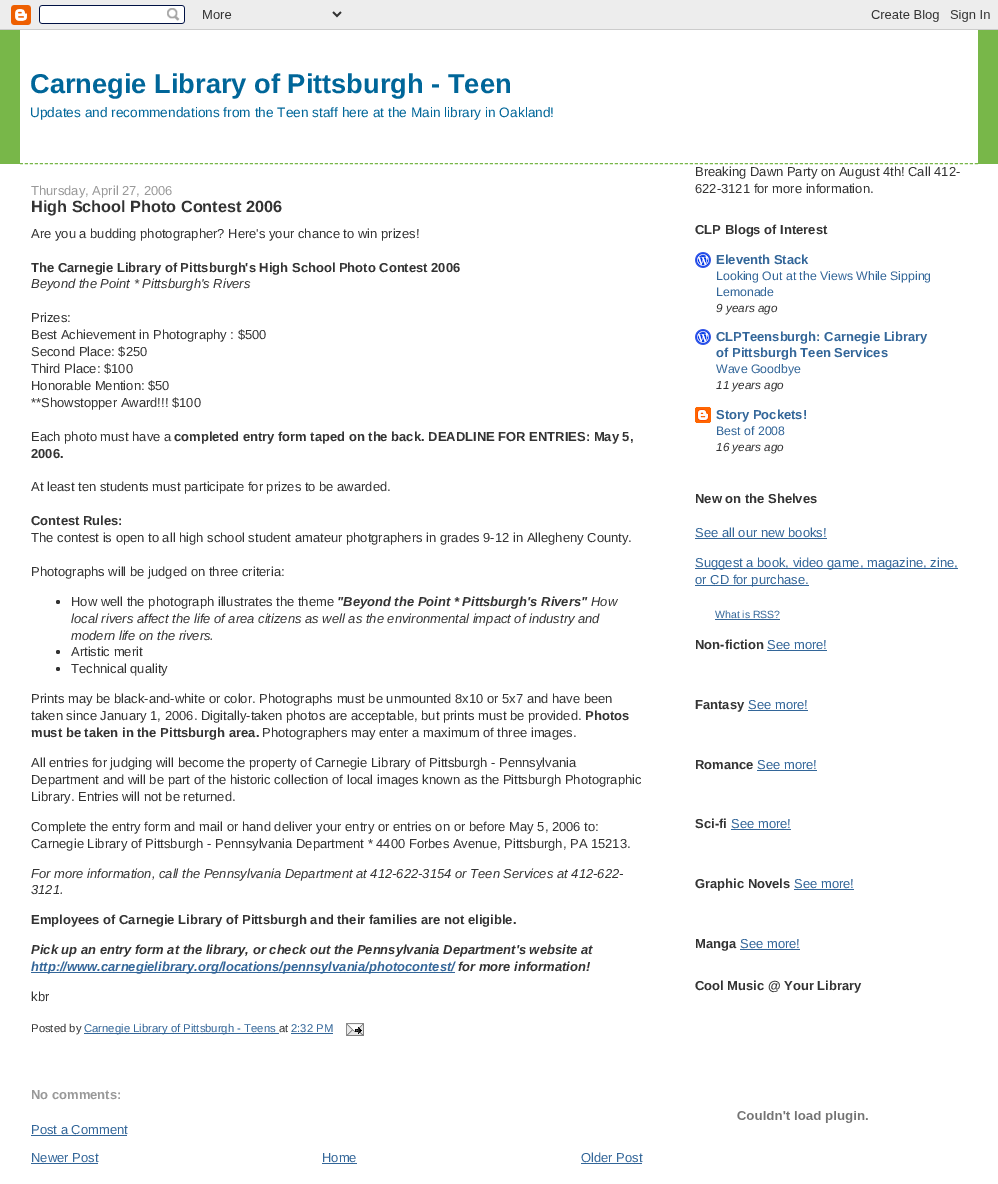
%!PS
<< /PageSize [998 1184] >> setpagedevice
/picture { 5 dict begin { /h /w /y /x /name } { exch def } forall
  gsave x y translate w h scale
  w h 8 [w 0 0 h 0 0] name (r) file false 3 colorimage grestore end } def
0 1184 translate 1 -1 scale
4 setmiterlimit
1 setgray
0 0 998 1184 rectfill
(img1.rgb) 0 0 998 30 picture
0.471 0.718 0.286 setrgbcolor
0 30 998 134 rectfill
1 setgray
20 30 958 134 rectfill
0.471 0.718 0.286 setrgbcolor
[3 2] 0 setdash
newpath 20 163.5 moveto 978 163.5 lineto stroke
/LiberationSans-Bold [27.25 0 0 -27.25 0 0] selectfont
0 0.4 0.6 setrgbcolor
30 93 moveto (Carnegie Library of Pittsburgh - Teen) show
/LiberationSans-Regular [13.65 0 0 -13.65 0 0] selectfont
30 117 moveto (Updates and recommendations from the Teen staff here at the Main library in Oakland!) show
/LiberationSans-Regular [13 0 0 -13 0 0] selectfont
0.6 setgray
31 195 moveto (Thursday, April 27, 2006) show
/LiberationSans-Bold [16.25 0 0 -16.25 0 0] selectfont
0.2 setgray
31 212 moveto (High School Photo Contest 2006) show
/LiberationSans-Regular [13 0 0 -13 0 0] selectfont
31 238 moveto (Are you a budding photographer? Here's your chance to win prizes!) show
/LiberationSans-Bold [13 0 0 -13 0 0] selectfont
31 272 moveto (The Carnegie Library of Pittsburgh's High School Photo Contest 2006) show
/LiberationSans-Italic [13 0 0 -13 0 0] selectfont
31 288 moveto (Beyond the Point * Pittsburgh's Rivers) show
/LiberationSans-Regular [13 0 0 -13 0 0] selectfont
31 322 moveto (Prizes:) show
31 339 moveto (Best Achievement in Photography : $500) show
31 356 moveto (Second Place: $250) show
31 373 moveto (Third Place: $100) show
31 390 moveto (Honorable Mention: $50) show
31 407 moveto (**Showstopper Award!!! $100) show
31 441 moveto (Each photo must have a) show
/LiberationSans-Bold [13 0 0 -13 0 0] selectfont
174 441 moveto (completed entry form taped on the back. DEADLINE FOR ENTRIES: May 5,) show
31 458 moveto (2006.) show
/LiberationSans-Regular [13 0 0 -13 0 0] selectfont
31 491 moveto (At least ten students must participate for prizes to be awarded.) show
/LiberationSans-Bold [13 0 0 -13 0 0] selectfont
31 525 moveto (Contest Rules:) show
/LiberationSans-Regular [13 0 0 -13 0 0] selectfont
31 542 moveto (The contest is open to all high school student amateur photgraphers in grades 9-12 in Allegheny County.) show
31 576 moveto (Photographs will be judged on three criteria:) show
newpath 58 602 2 0 360 arc closepath fill
71 606 moveto (How well the photograph illustrates the theme) show
/LiberationSans-BoldItalic [13 0 0 -13 0 0] selectfont
337 606 moveto ("Beyond the Point * Pittsburgh's Rivers") show
/LiberationSans-Italic [13 0 0 -13 0 0] selectfont
591 606 moveto (How) show
71 623 moveto (local rivers affect the life of area citizens as well as the environmental impact of industry and) show
71 640 moveto (modern life on the rivers.) show
newpath 58 652 2 0 360 arc closepath fill
/LiberationSans-Regular [13 0 0 -13 0 0] selectfont
71 656 moveto (Artistic merit) show
newpath 58 669 2 0 360 arc closepath fill
71 673 moveto (Technical quality) show
31 703 moveto (Prints may be black-and-white or color. Photographs must be unmounted 8x10 or 5x7 and have been) show
31 720 moveto (taken since January 1, 2006. Digitally-taken photos are acceptable, but prints must be provided.) show
/LiberationSans-Bold [13 0 0 -13 0 0] selectfont
585 720 moveto (Photos) show
31 737 moveto (must be taken in the Pittsburgh area.) show
/LiberationSans-Regular [13 0 0 -13 0 0] selectfont
262 737 moveto (Photographers may enter a maximum of three images.) show
31 767 moveto (All entries for judging will become the property of Carnegie Library of Pittsburgh - Pennsylvania) show
31 784 moveto (Department and will be part of the historic collection of local images known as the Pittsburgh Photographic) show
31 801 moveto (Library. Entries will not be returned.) show
31 831 moveto (Complete the entry form and mail or hand deliver your entry or entries on or before May 5, 2006 to:) show
31 848 moveto (Carnegie Library of Pittsburgh - Pennsylvania Department * 4400 Forbes Avenue, Pittsburgh, PA 15213.) show
/LiberationSans-Italic [13 0 0 -13 0 0] selectfont
31 878 moveto (For more information, call the Pennsylvania Department at 412-622-3154 or Teen Services at 412-622-) show
31 894 moveto (3121.) show
/LiberationSans-Bold [13 0 0 -13 0 0] selectfont
31 924 moveto (Employees of Carnegie Library of Pittsburgh and their families are not eligible.) show
/LiberationSans-BoldItalic [13 0 0 -13 0 0] selectfont
31 954 moveto (Pick up an entry form at the library, or check out the Pennsylvania Department's website at) show
0.2 0.4 0.6 setrgbcolor
31 972 424 1 rectfill
31 971 moveto (http://www.carnegielibrary.org/locations/pennsylvania/photocontest/) show
0.2 setgray
458 971 moveto (for more information!) show
/LiberationSans-Regular [13 0 0 -13 0 0] selectfont
31 1001 moveto (kbr) show
/LiberationSans-Regular [11.3 0 0 -11.3 0 0] selectfont
31 1032 moveto (Posted by) show
0.2 0.4 0.6 setrgbcolor
84 1033 191 1 rectfill
84 1032 moveto (Carnegie Library of Pittsburgh - Teens) show
275 1033 4 1 rectfill
0.2 setgray
279 1032 moveto (at) show
0.2 0.4 0.6 setrgbcolor
291 1032 moveto (2:32 PM) show
291 1033 42 1 rectfill
(img2.rgb) 346 1023 18 13 picture
/LiberationSans-Bold [13 0 0 -13 0 0] selectfont
0.6 setgray
31 1099 moveto (No comments:) show
/LiberationSans-Regular [13 0 0 -13 0 0] selectfont
0.2 0.4 0.6 setrgbcolor
31 1134 moveto (Post a Comment) show
31 1135 96 1 rectfill
31 1162 moveto (Newer Post) show
31 1163 67 1 rectfill
322 1162 moveto (Home) show
322 1163 35 1 rectfill
581 1162 moveto (Older Post) show
581 1163 61 1 rectfill
0.2 setgray
695 176 moveto (Breaking Dawn Party on August 4th! Call 412-) show
695 193 moveto (622-3121 for more information.) show
/LiberationSans-Bold [13 0 0 -13 0 0] selectfont
695 234 moveto (CLP Blogs of Interest) show
(img3.rgb) 695 252 16 16 picture
0.2 0.4 0.6 setrgbcolor
716 264 moveto (Eleventh Stack) show
/LiberationSans-Regular [12.3 0 0 -12.3 0 0] selectfont
716 280 moveto (Looking Out at the Views While Sipping) show
716 296 moveto (Lemonade) show
/LiberationSans-Italic [11.75 0 0 -11.75 0 0] selectfont
0.2 setgray
716 312 moveto (9 years ago) show
(img3.rgb) 695 329 16 16 picture
/LiberationSans-Bold [13 0 0 -13 0 0] selectfont
0.2 0.4 0.6 setrgbcolor
716 341 moveto (CLPTeensburgh: Carnegie Library) show
716 357 moveto (of Pittsburgh Teen Services) show
/LiberationSans-Regular [12.3 0 0 -12.3 0 0] selectfont
716 373 moveto (Wave Goodbye) show
/LiberationSans-Italic [11.75 0 0 -11.75 0 0] selectfont
0.2 setgray
716 389 moveto (11 years ago) show
(img4.rgb) 695 407 16 16 picture
/LiberationSans-Bold [13 0 0 -13 0 0] selectfont
0.2 0.4 0.6 setrgbcolor
716 419 moveto (Story Pockets!) show
/LiberationSans-Regular [12.3 0 0 -12.3 0 0] selectfont
716 435 moveto (Best of 2008) show
/LiberationSans-Italic [11.75 0 0 -11.75 0 0] selectfont
0.2 setgray
716 451 moveto (16 years ago) show
/LiberationSans-Bold [13 0 0 -13 0 0] selectfont
695 503 moveto (New on the Shelves) show
/LiberationSans-Regular [13 0 0 -13 0 0] selectfont
0.2 0.4 0.6 setrgbcolor
695 537 moveto (See all our new books!) show
695 538 132 1 rectfill
695 568 263 1 rectfill
695 567 moveto (Suggest a book, video game, magazine, zine,) show
695 585 114 1 rectfill
695 584 moveto (or CD for purchase.) show
/LiberationSans-Regular [10.5 0 0 -10.5 0 0] selectfont
715 618 moveto (What is RSS?) show
715 619 65 1 rectfill
/LiberationSans-Bold [13 0 0 -13 0 0] selectfont
0.2 setgray
695 649 moveto (Non-fiction) show
/LiberationSans-Regular [13 0 0 -13 0 0] selectfont
0.2 0.4 0.6 setrgbcolor
767 649 moveto (See more!) show
767 650 60 1 rectfill
/LiberationSans-Bold [13 0 0 -13 0 0] selectfont
0.2 setgray
695 709 moveto (Fantasy) show
/LiberationSans-Regular [13 0 0 -13 0 0] selectfont
0.2 0.4 0.6 setrgbcolor
748 709 moveto (See more!) show
748 710 60 1 rectfill
/LiberationSans-Bold [13 0 0 -13 0 0] selectfont
0.2 setgray
695 769 moveto (Romance) show
/LiberationSans-Regular [13 0 0 -13 0 0] selectfont
0.2 0.4 0.6 setrgbcolor
757 769 moveto (See more!) show
757 770 60 1 rectfill
/LiberationSans-Bold [13 0 0 -13 0 0] selectfont
0.2 setgray
695 828 moveto (Sci-fi) show
/LiberationSans-Regular [13 0 0 -13 0 0] selectfont
0.2 0.4 0.6 setrgbcolor
731 828 moveto (See more!) show
731 829 60 1 rectfill
/LiberationSans-Bold [13 0 0 -13 0 0] selectfont
0.2 setgray
695 888 moveto (Graphic Novels) show
/LiberationSans-Regular [13 0 0 -13 0 0] selectfont
0.2 0.4 0.6 setrgbcolor
794 888 moveto (See more!) show
794 889 60 1 rectfill
/LiberationSans-Bold [13 0 0 -13 0 0] selectfont
0.2 setgray
695 948 moveto (Manga) show
/LiberationSans-Regular [13 0 0 -13 0 0] selectfont
0.2 0.4 0.6 setrgbcolor
740 948 moveto (See more!) show
740 949 60 1 rectfill
/LiberationSans-Bold [13 0 0 -13 0 0] selectfont
0.2 setgray
695 990 moveto (Cool Music @ Your Library) show
(img5.rgb) 737 1111 131 12 picture
showpage
